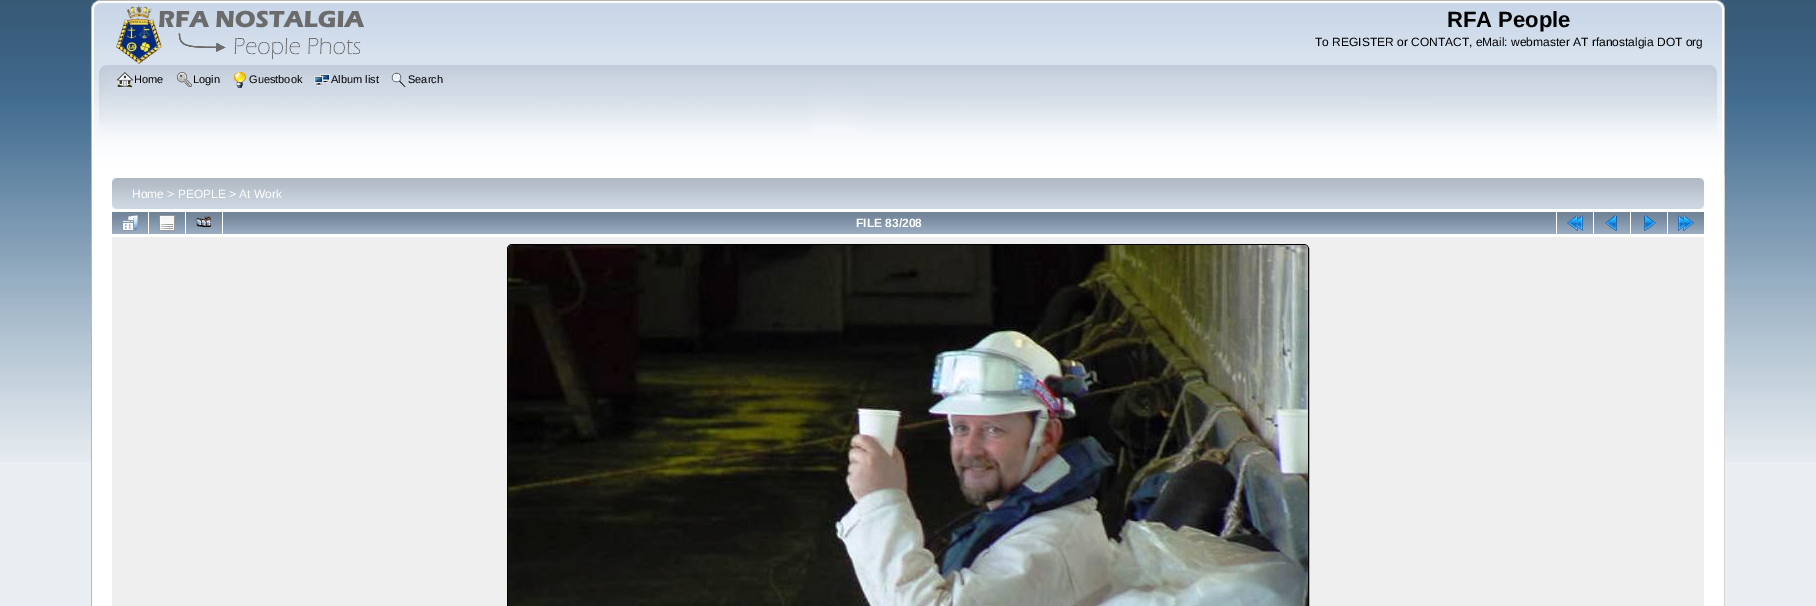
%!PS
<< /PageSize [1816 606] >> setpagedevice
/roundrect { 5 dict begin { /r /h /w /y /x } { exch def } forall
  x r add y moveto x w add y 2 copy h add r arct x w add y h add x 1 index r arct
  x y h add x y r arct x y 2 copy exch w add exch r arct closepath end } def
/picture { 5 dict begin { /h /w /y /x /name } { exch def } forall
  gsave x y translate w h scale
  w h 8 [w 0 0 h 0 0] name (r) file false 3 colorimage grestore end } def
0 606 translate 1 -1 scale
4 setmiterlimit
0.914 0.933 0.949 setrgbcolor
0 0 1816 606 rectfill
(img1.rgb) 0 0 1816 462 picture
(img2.rgb) 91 0 1626 65 picture
(img3.rgb) 1717 0 8 65 picture
(img4.rgb) 116 5 248 59 picture
/LiberationSans-Bold [22 0 0 -22 0 0] selectfont
0 setgray
1447 27 moveto (RFA People) show
/LiberationSans-Regular [12 0 0 -12 0 0] selectfont
1315 46 moveto (To REGISTER or CONTACT, eMail: webmaster AT rfanostalgia DOT org) show
(img5.rgb) 91 65 1620 110 picture
(img6.rgb) 1711 65 14 110 picture
(img7.rgb) 117 72 16 16 picture
/LiberationSans-Regular [11 0 0 -11 0 0] selectfont
134 83 moveto (Home) show
(img8.rgb) 177 72 15 15 picture
193 83 moveto (Login) show
(img9.rgb) 234 72 12 16 picture
249 83 moveto (Guestbook) show
(img10.rgb) 314 74 16 12 picture
331 83 moveto (Album list) show
(img11.rgb) 391 72 16 15 picture
408 83 moveto (Search) show
1 setgray
92 175 1632 431 rectfill
0.718 setgray
91 175 1 431 rectfill
0.831 setgray
1724 175 1 431 rectfill
(img12.rgb) 112 178 1588 31 picture
(img13.rgb) 1700 178 4 31 picture
/LiberationSans-Regular [12 0 0 -12 0 0] selectfont
1 setgray
132 198 moveto (Home > PEOPLE > At Work) show
(img14.rgb) 112 212 36 22 picture
(img15.rgb) 122 215 16 16 picture
(img14.rgb) 149 212 36 22 picture
(img16.rgb) 159 215 16 16 picture
(img14.rgb) 186 212 36 22 picture
(img17.rgb) 196 216 16 12 picture
(img18.rgb) 223 212 1333 22 picture
/LiberationSans-Bold [12 0 0 -12 0 0] selectfont
856 227 moveto (FILE 83/208) show
(img14.rgb) 1557 212 36 22 picture
(img19.rgb) 1567 215 16 16 picture
(img14.rgb) 1594 212 36 22 picture
(img20.rgb) 1605 215 12 16 picture
(img14.rgb) 1631 212 36 22 picture
(img21.rgb) 1644 215 12 16 picture
(img14.rgb) 1668 212 36 22 picture
(img22.rgb) 1678 215 16 16 picture
0.937 setgray
112 237 1592 369 rectfill
0 setgray
507.5 244.5 801 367 4.5 roundrect stroke
(img23.rgb) 508 245 800 361 picture
showpage
